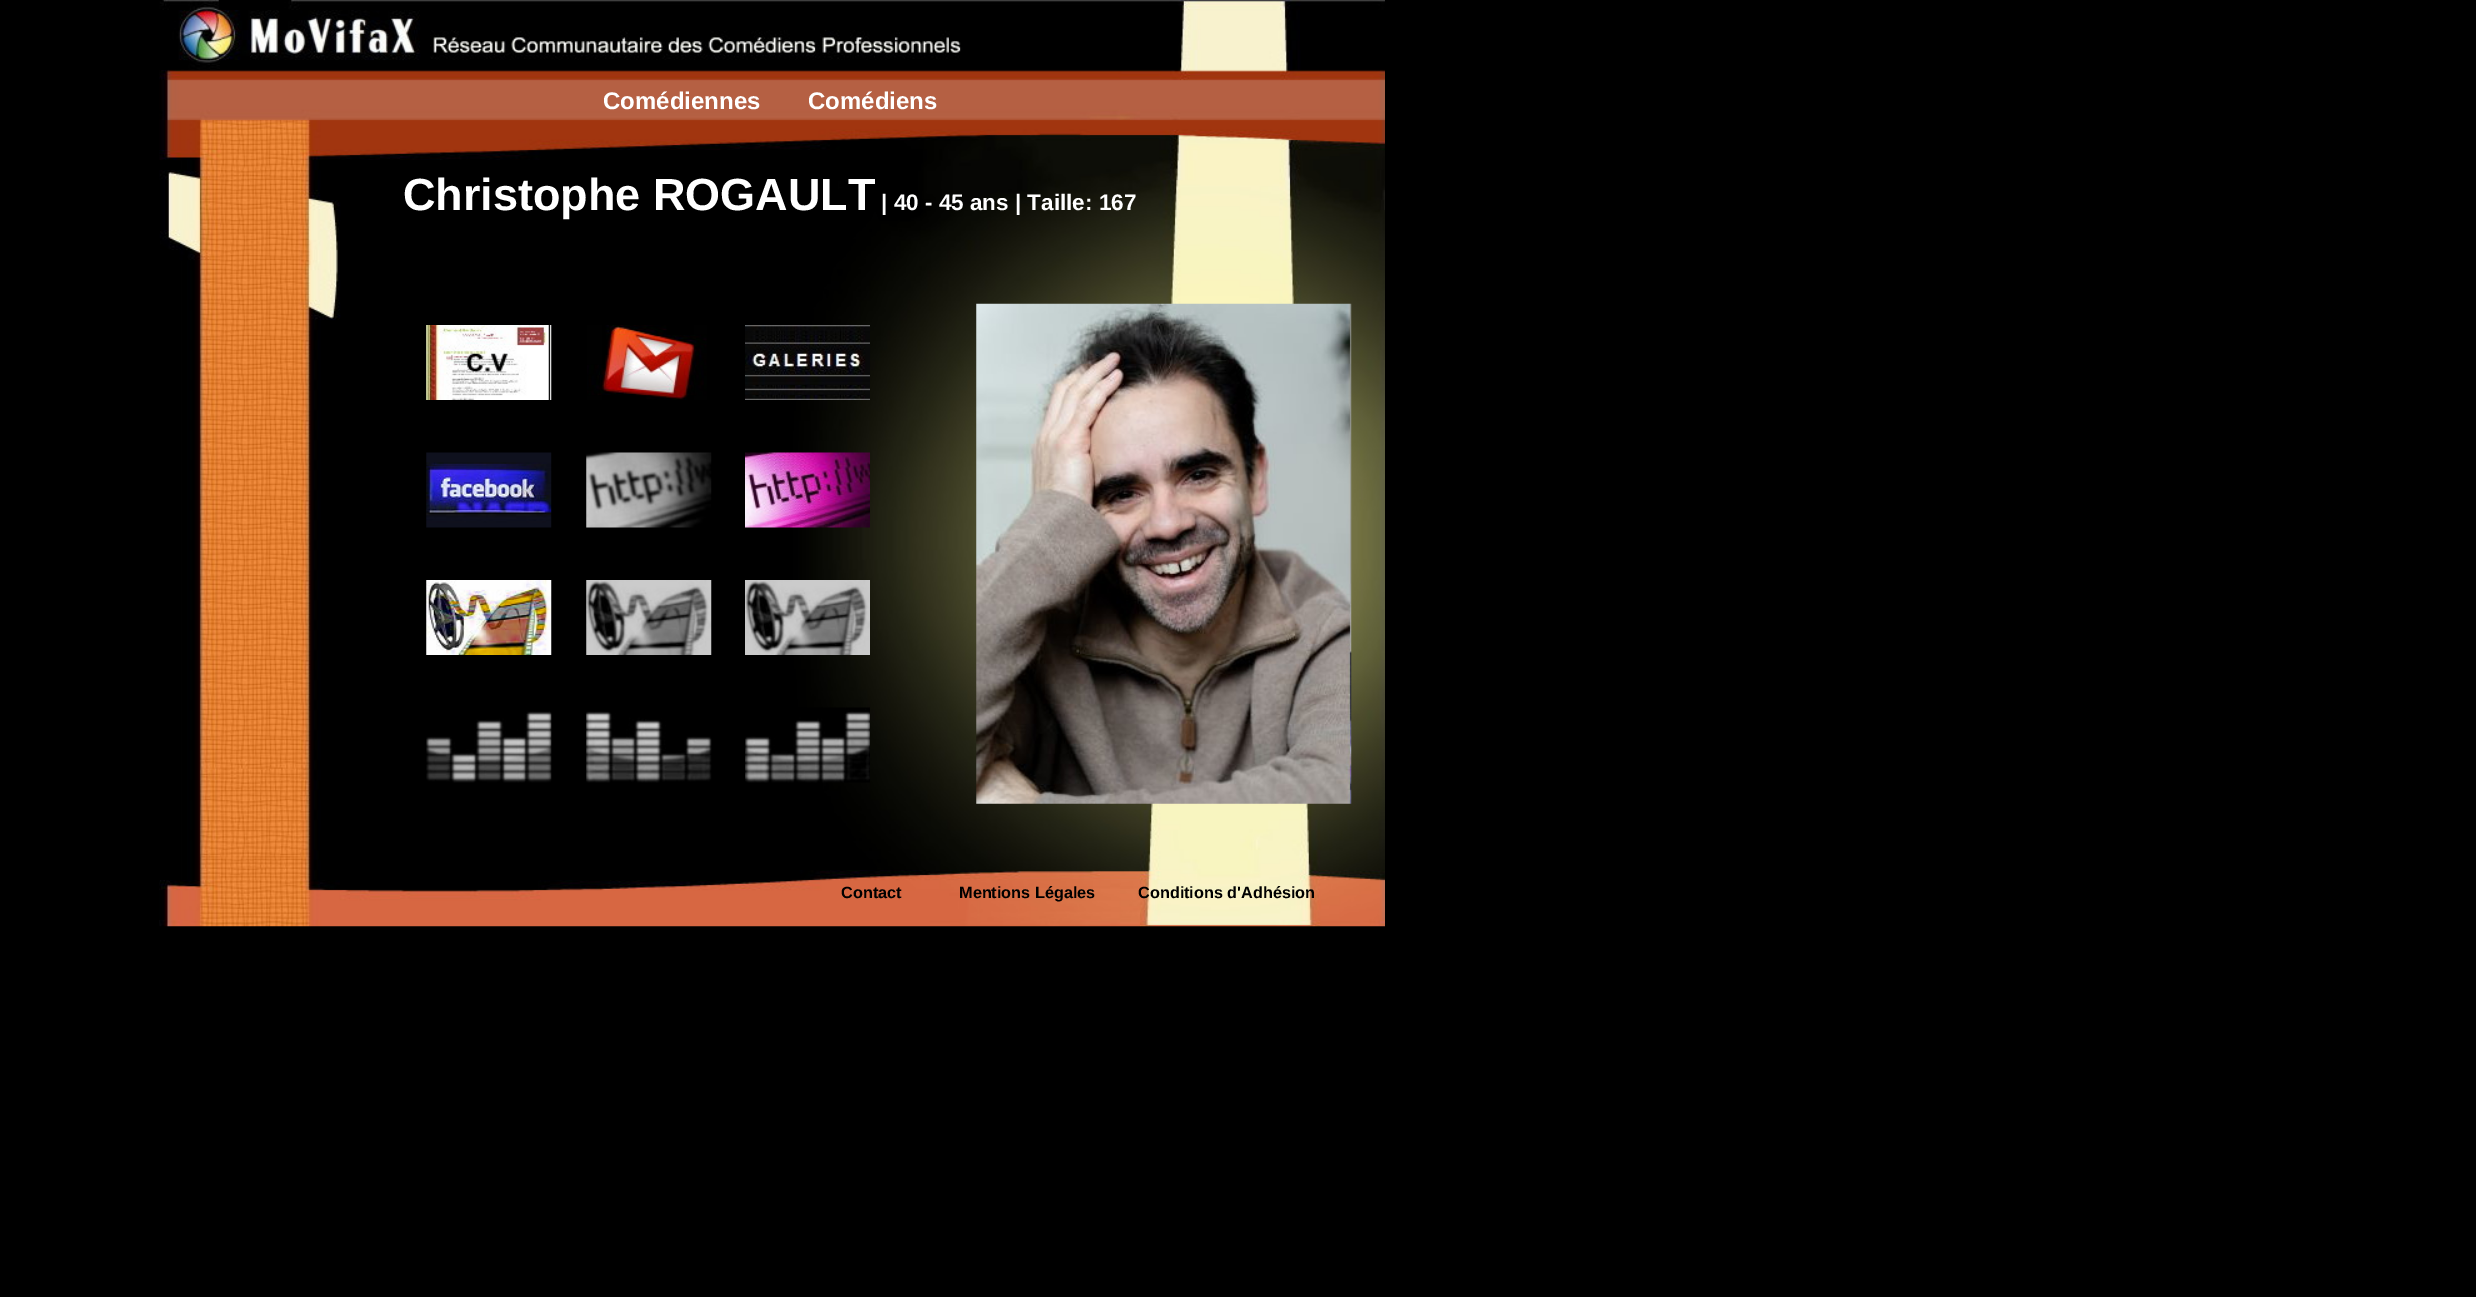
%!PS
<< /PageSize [2476 1297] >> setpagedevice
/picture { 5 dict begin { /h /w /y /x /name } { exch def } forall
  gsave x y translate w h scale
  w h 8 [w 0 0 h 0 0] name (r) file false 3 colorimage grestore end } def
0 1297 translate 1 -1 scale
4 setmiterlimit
0 setgray
0 0 2476 1297 rectfill
(img1.rgb) 159 0 1226 927 picture
/LiberationSans-Bold [24 0 0 -24 0 0] selectfont
1 setgray
603 109 moveto (Comédiennes) show
808 109 moveto (Comédiens) show
/LiberationSans-Bold [45 0 0 -45 0 0] selectfont
403 210 moveto (Christophe ROGAULT) show
/LiberationSans-Bold [22.5 0 0 -22.5 0 0] selectfont
881 210 moveto (| 40 - 45 ans | Taille: 167) show
(img2.rgb) 426 325 126 75 picture
(img3.rgb) 587 325 120 75 picture
(img4.rgb) 745 325 125 75 picture
(img5.rgb) 426 452 126 76 picture
(img6.rgb) 586 452 126 76 picture
(img7.rgb) 745 452 125 76 picture
(img8.rgb) 426 580 126 75 picture
(img9.rgb) 586 580 126 75 picture
(img10.rgb) 745 580 125 75 picture
(img11.rgb) 426 711 126 72 picture
(img12.rgb) 586 711 126 72 picture
(img13.rgb) 745 707 125 76 picture
(img14.rgb) 976 303 376 501 picture
/LiberationSans-Bold [16.25 0 0 -16.25 0 0] selectfont
0 setgray
841 898 moveto (Contact) show
959 898 moveto (Mentions Légales) show
1138 898 moveto (Conditions d'Adhésion) show
showpage
